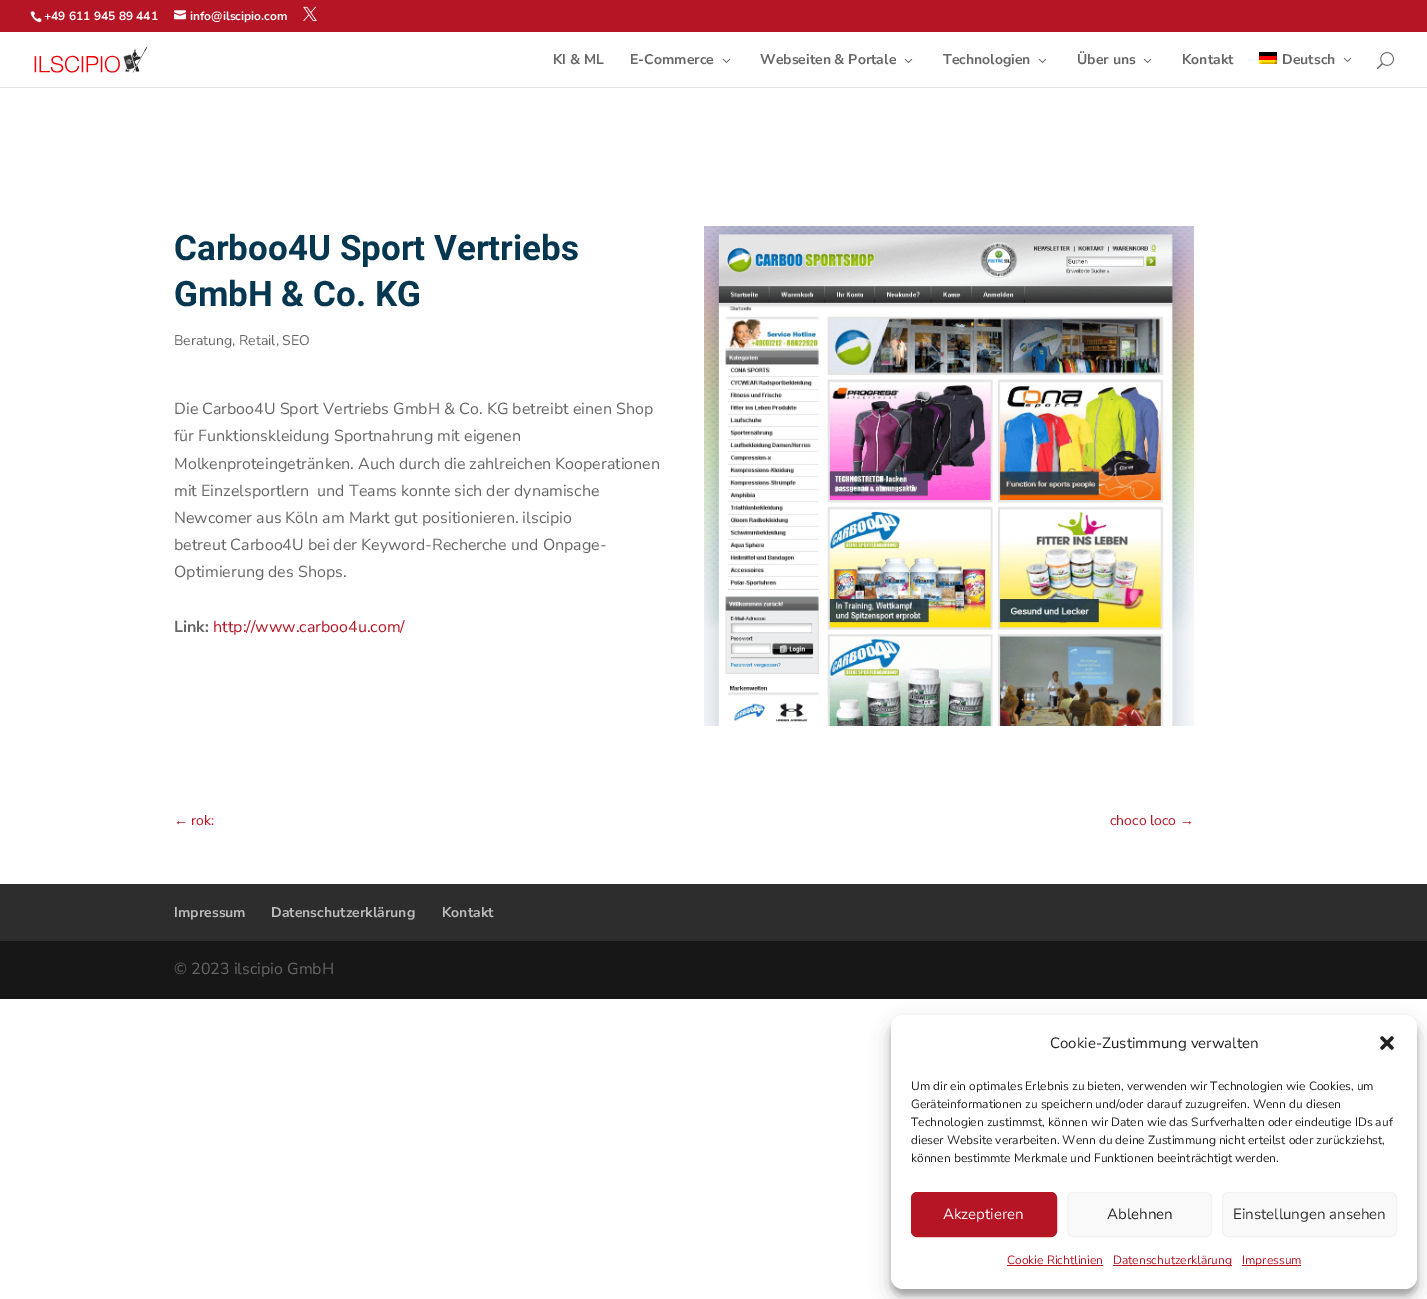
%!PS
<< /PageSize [1427 1299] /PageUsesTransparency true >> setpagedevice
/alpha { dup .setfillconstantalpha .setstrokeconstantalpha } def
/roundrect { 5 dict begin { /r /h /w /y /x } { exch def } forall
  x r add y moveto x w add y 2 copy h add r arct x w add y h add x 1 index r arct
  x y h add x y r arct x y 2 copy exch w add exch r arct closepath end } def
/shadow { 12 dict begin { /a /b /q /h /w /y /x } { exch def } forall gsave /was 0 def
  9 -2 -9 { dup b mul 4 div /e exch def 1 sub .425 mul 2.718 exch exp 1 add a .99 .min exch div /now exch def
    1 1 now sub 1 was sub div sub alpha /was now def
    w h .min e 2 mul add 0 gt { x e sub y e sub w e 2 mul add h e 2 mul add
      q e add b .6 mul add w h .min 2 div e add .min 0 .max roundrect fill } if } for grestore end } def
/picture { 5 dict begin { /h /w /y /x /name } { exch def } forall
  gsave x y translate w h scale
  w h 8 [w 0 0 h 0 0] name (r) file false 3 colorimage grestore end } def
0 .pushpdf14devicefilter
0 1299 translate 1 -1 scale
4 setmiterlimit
1 setgray
0 0 1427 1299 rectfill
0.714 0.082 0.145 setrgbcolor
0 0 1427 32 rectfill
(img1.rgb) 30 11 12 12 picture
/NunitoSans-Bold [12 0 0 -12 0 0] selectfont
1 setgray
44 20 moveto (+49 611 945 89 441) show
(img2.rgb) 174 10 12 10 picture
190 20 moveto (info@ilscipio.com) show
(img3.rgb) 303 6 14 15 picture
0.902 setgray
0 87 1427 1 rectfill
(img4.rgb) 34 46 114 27 picture
/NunitoSans-Bold [14 0 0 -14 0 0] selectfont
0.4 setgray
553 64 moveto (KI & ML) show
630 64 moveto (E-Commerce) show
(img5.rgb) 722 58 9 5 picture
760 64 moveto (Webseiten & Portale) show
(img5.rgb) 904 58 9 5 picture
943 64 moveto (Technologien) show
(img5.rgb) 1038 58 9 5 picture
1077 64 moveto (Über uns) show
(img5.rgb) 1143 58 9 5 picture
1182 64 moveto (Kontakt) show
(img6.rgb) 1259 52 18 12 picture
1282 64 moveto (Deutsch) show
(img5.rgb) 1343 57 9 5 picture
(img7.rgb) 1377 52 17 18 picture
/Roboto-Bold [35 0 0 -35 0 0] selectfont
0.02 0.216 0.314 setrgbcolor
174 260 moveto (Carboo4U Sport Vertriebs) show
174 306 moveto (GmbH & Co. KG) show
/NunitoSans-Regular [14 0 0 -14 0 0] selectfont
0.4 setgray
174 345 moveto (Beratung, Retail, SEO) show
/NunitoSans-Regular [16 0 0 -16 0 0] selectfont
174 414 moveto (Die Carboo4U Sport Vertriebs GmbH & Co. KG betreibt einen Shop) show
174 441 moveto (für Funktionskleidung Sportnahrung mit eigenen) show
174 469 moveto (Molkenproteingetränken. Auch durch die zahlreichen Kooperationen) show
174 496 moveto (mit Einzelsportlern  und Teams konnte sich der dynamische) show
174 523 moveto (Newcomer aus Köln am Markt gut positionieren. ilscipio) show
174 550 moveto (betreut Carboo4U bei der Keyword-Recherche und Onpage-) show
174 577 moveto (Optimierung des Shops.) show
/NunitoSans-Bold [16 0 0 -16 0 0] selectfont
174 632 moveto (Link:) show
/NunitoSans-Regular [16 0 0 -16 0 0] selectfont
0.714 0.082 0.145 setrgbcolor
213 632 moveto (http://www.carboo4u.com/) show
(img8.rgb) 704 226 490 500 picture
/LiberationSans-Regular [14 0 0 -14 0 0] selectfont
174 825 moveto (←) show
/NunitoSans-Regular [14 0 0 -14 0 0] selectfont
191 825 moveto (rok:) show
1110 825 moveto (choco loco) show
/LiberationSans-Regular [14 0 0 -14 0 0] selectfont
1180 825 moveto (→) show
0.176 setgray
0 884 1427 57 rectfill
/NunitoSans-Bold [14 0 0 -14 0 0] selectfont
0.733 setgray
174 917 moveto (Impressum) show
271 917 moveto (Datenschutzerklärung) show
442 917 moveto (Kontakt) show
0.09 setgray
0 941 1427 58 rectfill
/NunitoSans-Regular [16 0 0 -16 0 0] selectfont
0.4 setgray
174 974 moveto (© 2023 ilscipio GmbH) show
0 setgray
891 1021 526 274 12 3 0.23 shadow
891 1025 526 274 12 10 0.19 shadow
1 setgray
891 1015 526 274 12 roundrect fill
/NunitoSans-Regular [15 0 0 -15 0 0] selectfont
0.133 setgray
1050 1048 moveto (Cookie-Zustimmung verwalten) show
(img9.rgb) 1380 1036 14 14 picture
/NunitoSans-Regular [12 0 0 -12 0 0] selectfont
911 1090 moveto (Um dir ein optimales Erlebnis zu bieten, verwenden wir Technologien wie Cookies, um) show
911 1108 moveto (Geräteinformationen zu speichern und/oder darauf zuzugreifen. Wenn du diesen) show
911 1126 moveto (Technologien zustimmst, können wir Daten wie das Surfverhalten oder eindeutige IDs auf) show
911 1144 moveto (dieser Website verarbeiten. Wenn du deine Zustimmung nicht erteilst oder zurückziehst,) show
911 1162 moveto (können bestimmte Merkmale und Funktionen beeinträchtigt werden.) show
0.714 0.082 0.145 setrgbcolor
911.5 1192.5 145 44 5.5 roundrect gsave fill grestore
stroke
/NunitoSans-Regular [15 0 0 -15 0 0] selectfont
1 setgray
943 1219 moveto (Akzeptieren) show
0.976 setgray
1067.5 1192.5 144 44 5.5 roundrect gsave fill grestore
0.949 setgray
stroke
0.133 setgray
1107 1219 moveto (Ablehnen) show
0.976 setgray
1222.5 1192.5 174 44 5.5 roundrect gsave fill grestore
0.949 setgray
stroke
0.2 setgray
1233 1219 moveto (Einstellungen ansehen) show
/NunitoSans-Regular [12 0 0 -12 0 0] selectfont
0.714 0.082 0.145 setrgbcolor
1007 1264 moveto (Cookie Richtlinien) show
1007 1265 96 1 rectfill
1113 1265 119 1 rectfill
1113 1264 moveto (Datenschutzerklärung) show
1242 1265 59 1 rectfill
1242 1264 moveto (Impressum) show
.poppdf14devicefilter showpage
